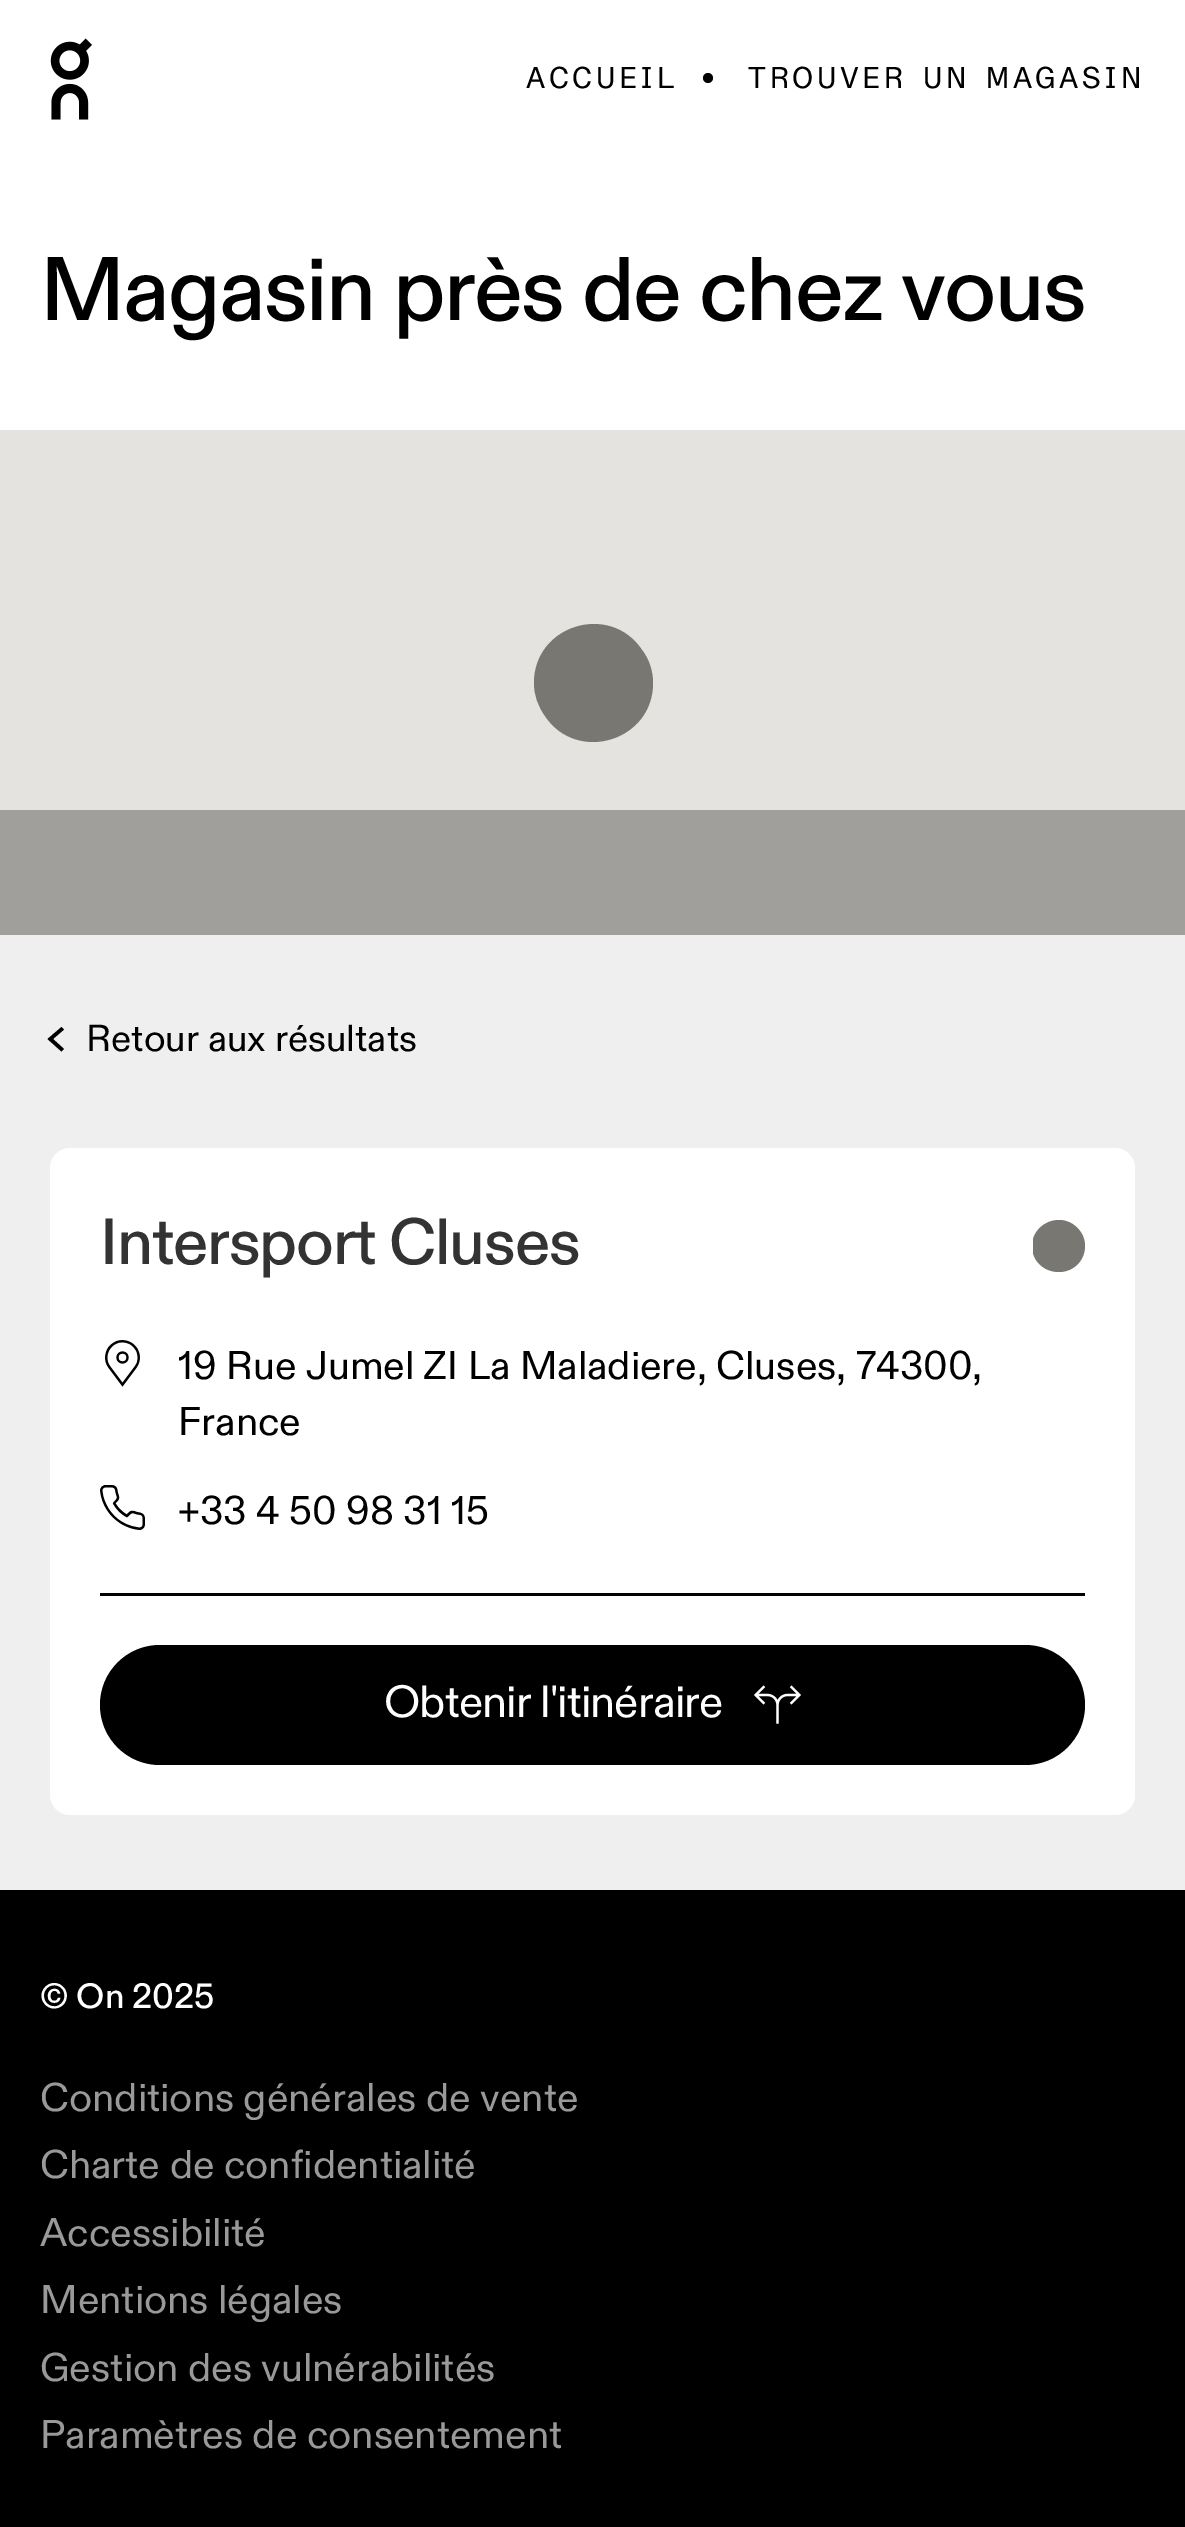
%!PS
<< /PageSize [1185 2527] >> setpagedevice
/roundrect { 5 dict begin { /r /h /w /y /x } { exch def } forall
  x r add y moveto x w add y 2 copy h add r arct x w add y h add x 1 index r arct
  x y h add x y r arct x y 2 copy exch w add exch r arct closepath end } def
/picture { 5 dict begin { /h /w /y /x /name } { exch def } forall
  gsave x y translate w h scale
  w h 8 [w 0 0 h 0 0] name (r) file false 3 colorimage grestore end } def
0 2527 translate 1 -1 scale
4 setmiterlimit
1 setgray
0 0 1185 2527 rectfill
(img1.rgb) 50 38 42 82 picture
/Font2-Regular [30 0 0 -30 0 0] selectfont
0 setgray
526 88 moveto 3.6 0 (ACCUEIL) ashow
newpath 708 78 5 0 360 arc closepath fill
748 88 moveto 3.6 0 (TROUVER UN MAGASIN) ashow
/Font-Medium [90 0 0 -90 0 0] selectfont
40 320 moveto -1.7 0 (Magasin près de chez vous) ashow
0.898 0.89 0.875 setrgbcolor
0 430 1185 380 rectfill
0.475 0.467 0.443 setrgbcolor
newpath 653 683 moveto 653 741 577 764 545 716 curveto 538 706 534 695 534 683 curveto 534 625 610 602 642 650 curveto 649 659 653 671 653 683 curveto closepath fill
0.627 0.624 0.612 setrgbcolor
0 810 1185 125 rectfill
0.937 setgray
0 935 1185 955 rectfill
0 setgray
newpath 64 1049 moveto 53 1039 lineto 64 1029.5 lineto 61.5 1027 lineto 47.5 1039 lineto 61.5 1051.5 lineto closepath fill
/Font-Regular [37.5 0 0 -37.5 0 0] selectfont
86 1051 moveto (Retour aux résultats) show
1 setgray
50 1148 1085 667 20 roundrect fill
/Font-Medium [65 0 0 -65 0 0] selectfont
0.2 setgray
100 1264 moveto -1.25 0 (Intersport Cluses) ashow
gsave
1033 1220 52 53 rectclip
0.475 0.467 0.443 setrgbcolor
newpath 1085 1246 moveto 1085 1261 1073 1272 1059 1272 curveto 1044 1272 1032 1261 1032 1246 curveto 1032 1232 1044 1220 1059 1220 curveto 1073 1220 1085 1232 1085 1246 curveto closepath fill
grestore
(img2.rgb) 105 1340 35 47 picture
/Font-Regular [40 0 0 -40 0 0] selectfont
0 setgray
178 1379 moveto (19 Rue Jumel ZI La Maladiere, Cluses, 74300,) show
178 1435 moveto (France) show
(img3.rgb) 100 1485 45 45 picture
178 1524 moveto (+33 4 50 98 31 15) show
100 1593 985 3 rectfill
100 1645 985 120 60 roundrect fill
/Font-Regular [45 0 0 -45 0 0] selectfont
1 setgray
384 1717 moveto -0.9 0 (Obtenir l'itinéraire) ashow
(img4.rgb) 754 1685 47 39 picture
0 setgray
0 1890 1185 637 rectfill
/Font-Medium [35 0 0 -35 0 0] selectfont
1 setgray
40 2008 moveto (© On 2025) show
/Font-Regular [40 0 0 -40 0 0] selectfont
0.6 setgray
40 2111 moveto (Conditions générales de vente) show
40 2178 moveto (Charte de confidentialité) show
40 2246 moveto (Accessibilité) show
40 2313 moveto (Mentions légales) show
40 2381 moveto (Gestion des vulnérabilités) show
40 2448 moveto (Paramètres de consentement) show
showpage
